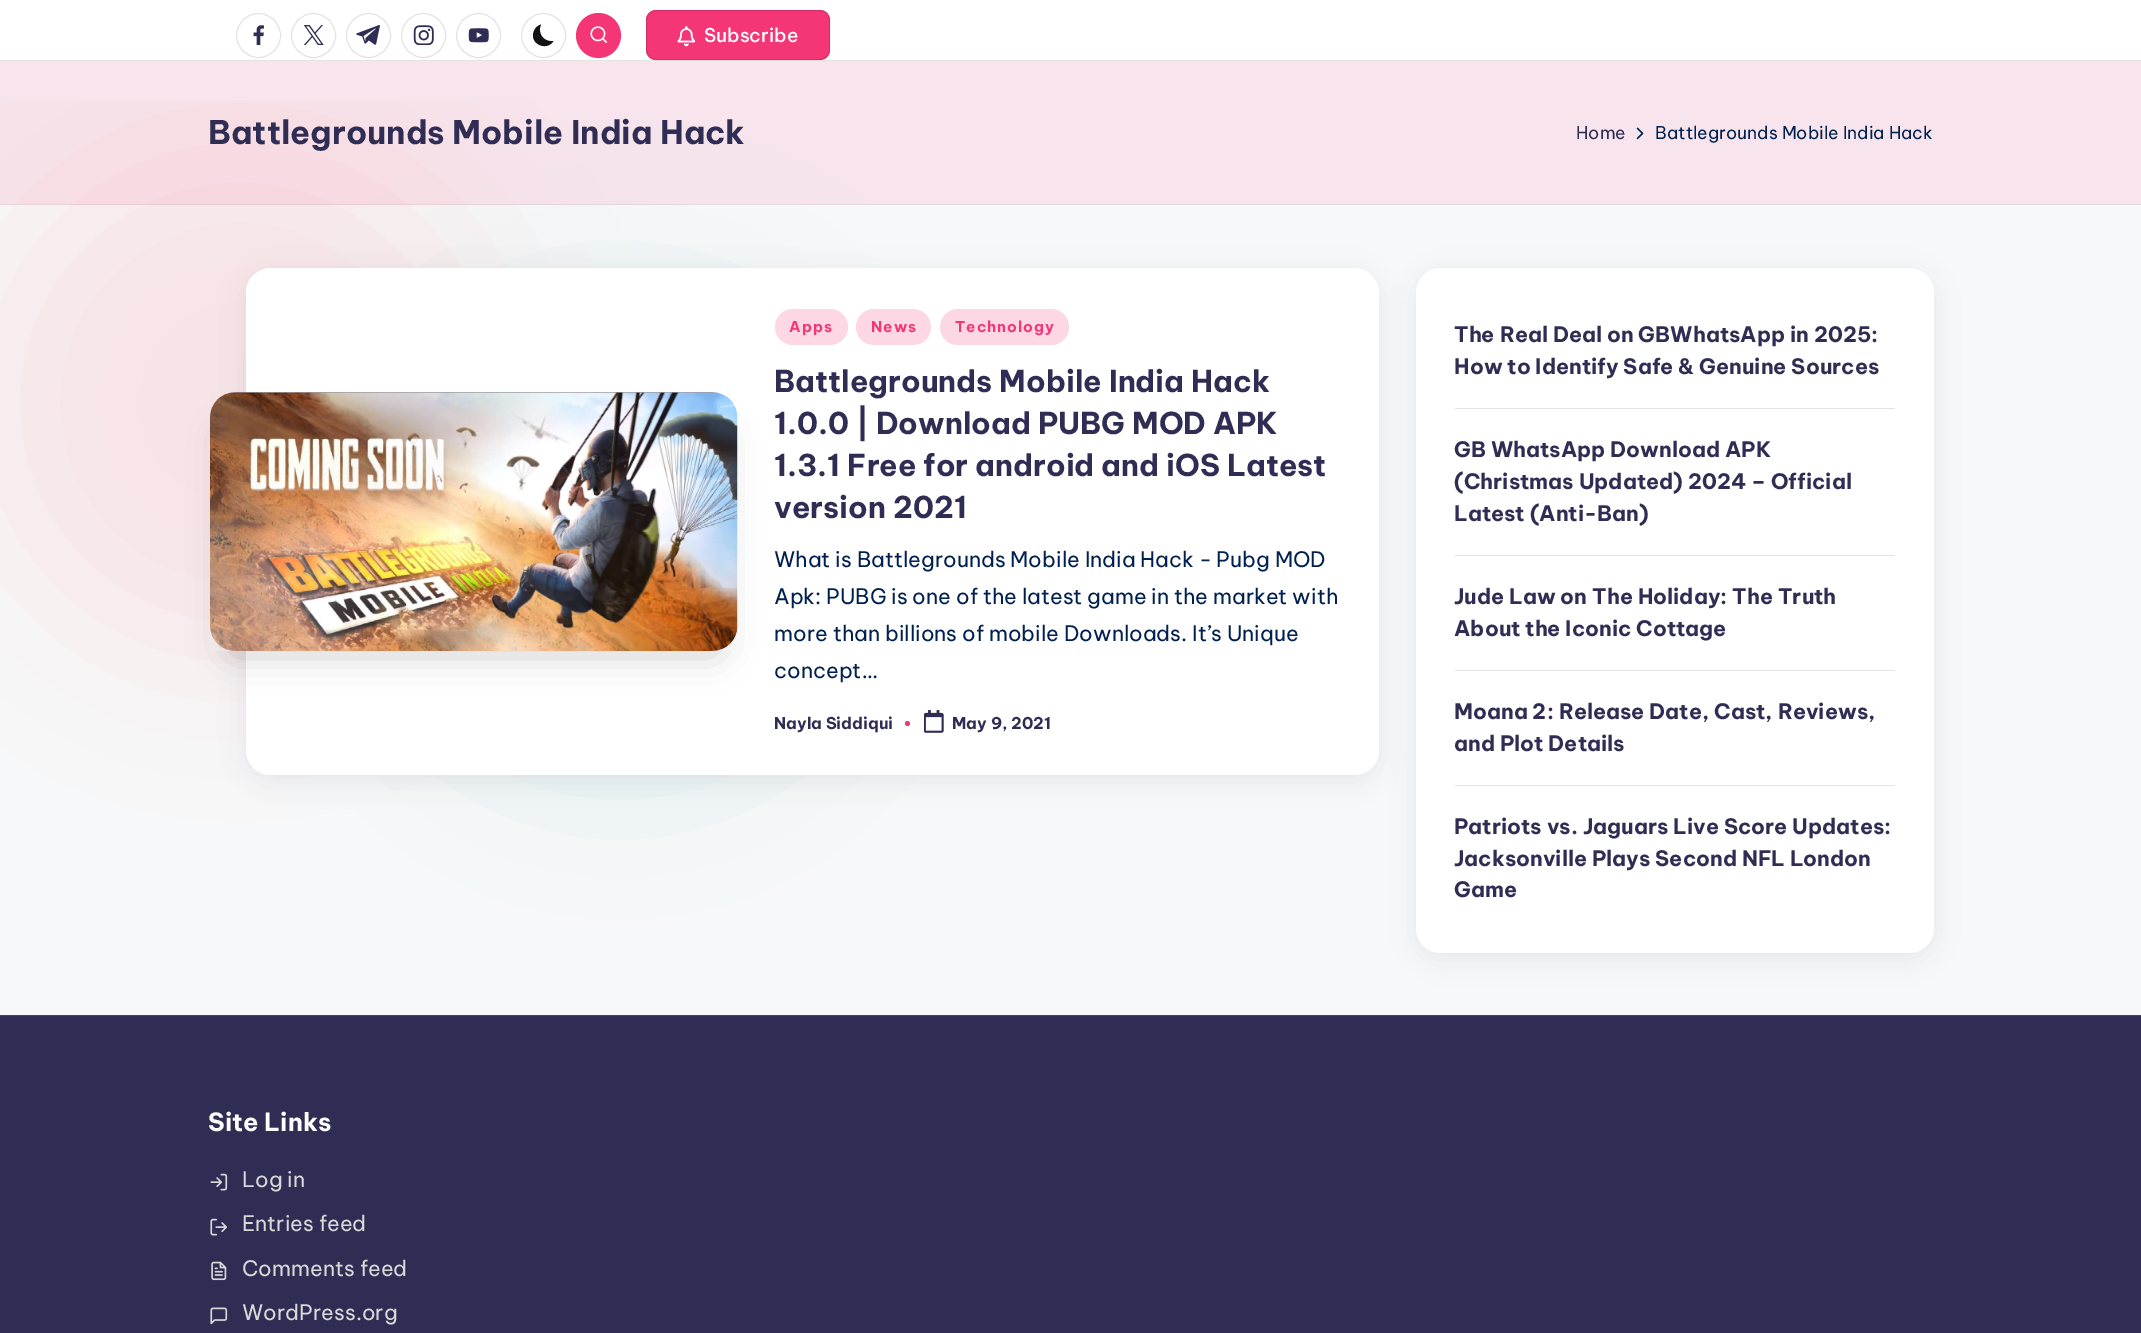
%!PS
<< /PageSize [2141 1333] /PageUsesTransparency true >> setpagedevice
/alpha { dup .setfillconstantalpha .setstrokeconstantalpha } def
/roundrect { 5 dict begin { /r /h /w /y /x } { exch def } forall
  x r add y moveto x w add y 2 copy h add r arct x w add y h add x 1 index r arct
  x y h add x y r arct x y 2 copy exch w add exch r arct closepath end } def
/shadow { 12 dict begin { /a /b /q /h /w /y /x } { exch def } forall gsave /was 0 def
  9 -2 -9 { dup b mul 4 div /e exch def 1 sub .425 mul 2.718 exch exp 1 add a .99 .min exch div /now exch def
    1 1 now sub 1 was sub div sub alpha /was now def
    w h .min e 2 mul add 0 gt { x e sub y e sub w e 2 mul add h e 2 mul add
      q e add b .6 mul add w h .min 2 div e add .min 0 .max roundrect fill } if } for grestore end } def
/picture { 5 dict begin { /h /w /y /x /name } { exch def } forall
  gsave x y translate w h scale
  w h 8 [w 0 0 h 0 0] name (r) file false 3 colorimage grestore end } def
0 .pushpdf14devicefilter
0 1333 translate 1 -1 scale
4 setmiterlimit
0.969 0.973 0.976 setrgbcolor
0 0 2141 1333 rectfill
gsave
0 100 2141 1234 rectclip
0.969 0.89 0.898 setrgbcolor
0 163 480 480 240 80 1 shadow
grestore
0.016 0.525 0.545 setrgbcolor
380 300 480 480 240 80 0.1 shadow
1 setgray
0 0 2141 60 rectfill
0.89 setgray
0 60 2141 1 rectfill
newpath 258.5 35.5 22 0 360 arc closepath stroke
(img1.rgb) 253 25 11 20 picture
newpath 313.5 35.5 22 0 360 arc closepath stroke
(img2.rgb) 303 25 21 20 picture
newpath 368.5 35.5 22 0 360 arc closepath stroke
(img3.rgb) 356 25 24 20 picture
newpath 423.5 35.5 22 0 360 arc closepath stroke
(img4.rgb) 413 25 21 20 picture
newpath 478.5 35.5 22 0 360 arc closepath stroke
(img5.rgb) 468 28 21 15 picture
newpath 543.5 35.5 22 0 360 arc closepath stroke
0.075 0.075 0.082 setrgbcolor
newpath 553.5 41 moveto 544 42.5 537 33.5 541 24.5 curveto 538 25.5 535.5 27.5 534.5 30 curveto 527.5 42.5 546 52.5 553.5 41 curveto closepath fill
0.957 0.212 0.463 setrgbcolor
newpath 598.5 35.5 22.5 0 360 arc closepath fill
(img6.rgb) 590 26 18 17 picture
646 10 184 50 10 roundrect fill
0.12 alpha
0 setgray
646.5 10.5 183 49 9.5 roundrect stroke
1 alpha
(img7.rgb) 677 26 19 21 picture
/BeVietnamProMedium-Medium [19 0 0 -19 0 0] selectfont
1 setgray
704 42 moveto (Subscribe) show
0.1 alpha
0.957 0.212 0.463 setrgbcolor
0 61 2141 144 rectfill
0.06 alpha
0 setgray
0 204 2141 1 rectfill
/BeVietnamPro-Bold [32.5 0 0 -32.5 0 0] selectfont
1 alpha
0.188 0.176 0.333 setrgbcolor
208 144 moveto (Battlegrounds Mobile India Hack) show
/BeVietnamPro-Regular [17.5 0 0 -17.5 0 0] selectfont
1576 139 moveto (Home) show
(img8.rgb) 1636 127 8 13 picture
0 0.125 0.314 setrgbcolor
1655 139 moveto (Battlegrounds Mobile India Hack) show
0.271 0.263 0.376 setrgbcolor
246 274 1133 507 25 12.5 0.1 shadow
1 setgray
246 268 1133 507 25 roundrect fill
0 setgray
225 428 498 228 10 17.5 0.18 shadow
(img9.rgb) 210 392 528 259 picture
0.992 0.843 0.894 setrgbcolor
775 309 73 36 18 roundrect fill
/BeVietnamPro-Bold [15 0 0 -15 0 0] selectfont
0.957 0.212 0.463 setrgbcolor
789 332 moveto 1 0 (Apps) ashow
0.992 0.843 0.894 setrgbcolor
856 309 75 36 18 roundrect fill
0.957 0.212 0.463 setrgbcolor
871 332 moveto 1 0 (News) ashow
0.992 0.843 0.894 setrgbcolor
940 309 129 36 18 roundrect fill
0.957 0.212 0.463 setrgbcolor
955 332 moveto 1 0 (Technology) ashow
/BeVietnamPro-Bold [30 0 0 -30 0 0] selectfont
0.188 0.176 0.333 setrgbcolor
774 392 moveto (Battlegrounds Mobile India Hack) show
774 434 moveto (1.0.0 | Download PUBG MOD APK) show
774 476 moveto (1.3.1 Free for android and iOS Latest) show
774 518 moveto (version 2021) show
/BeVietnamPro-Regular [21.25 0 0 -21.25 0 0] selectfont
0 0.125 0.314 setrgbcolor
774 567 moveto (What is Battlegrounds Mobile India Hack - Pubg MOD) show
774 604 moveto (Apk: PUBG is one of the latest game in the market with) show
774 641 moveto (more than billions of mobile Downloads. It’s Unique) show
774 678 moveto (concept…) show
/BeVietnamPro-Bold [16.25 0 0 -16.25 0 0] selectfont
0.188 0.176 0.333 setrgbcolor
774 729 moveto (Nayla Siddiqui) show
0.957 0.212 0.463 setrgbcolor
newpath 907.5 723.5 2.5 0 360 arc closepath fill
(img10.rgb) 924 710 20 23 picture
0.188 0.176 0.333 setrgbcolor
952 729 moveto (May 9, 2021) show
0.271 0.263 0.376 setrgbcolor
1416 274 518 685 25 12.5 0.1 shadow
1 setgray
1416 268 518 685 25 roundrect fill
/BeVietnamPro-Bold [21.25 0 0 -21.25 0 0] selectfont
0.188 0.176 0.333 setrgbcolor
1454 342 moveto (The Real Deal on GBWhatsApp in 2025:) show
1454 374 moveto (How to Identify Safe & Genuine Sources) show
0.89 setgray
1455 408 440 1 rectfill
0.188 0.176 0.333 setrgbcolor
1454 457 moveto (GB WhatsApp Download APK) show
1454 489 moveto (\(Christmas Updated\) 2024 – Official) show
1454 521 moveto (Latest \(Anti-Ban\)) show
0.89 setgray
1455 555 440 1 rectfill
0.188 0.176 0.333 setrgbcolor
1454 604 moveto (Jude Law on The Holiday: The Truth) show
1454 636 moveto (About the Iconic Cottage) show
0.89 setgray
1455 670 440 1 rectfill
0.188 0.176 0.333 setrgbcolor
1454 719 moveto (Moana 2: Release Date, Cast, Reviews,) show
1454 751 moveto (and Plot Details) show
0.89 setgray
1455 785 440 1 rectfill
0.188 0.176 0.333 setrgbcolor
1454 834 moveto (Patriots vs. Jaguars Live Score Updates:) show
1454 866 moveto (Jacksonville Plays Second NFL London) show
1454 897 moveto (Game) show
0 1016 2141 317 rectfill
0.271 0.259 0.4 setrgbcolor
0 1015 2141 1 rectfill
/BeVietnamPro-Bold [25 0 0 -25 0 0] selectfont
1 setgray
208 1131 moveto (Site Links) show
(img11.rgb) 210 1173 18 18 picture
/BeVietnamPro-Regular [21.25 0 0 -21.25 0 0] selectfont
0.851 setgray
242 1187 moveto (Log in) show
(img12.rgb) 210 1218 17 18 picture
242 1231 moveto (Entries feed) show
(img13.rgb) 211 1261 16 20 picture
242 1276 moveto (Comments feed) show
(img14.rgb) 210 1307 18 18 picture
242 1320 moveto (WordPress.org) show
.poppdf14devicefilter showpage
